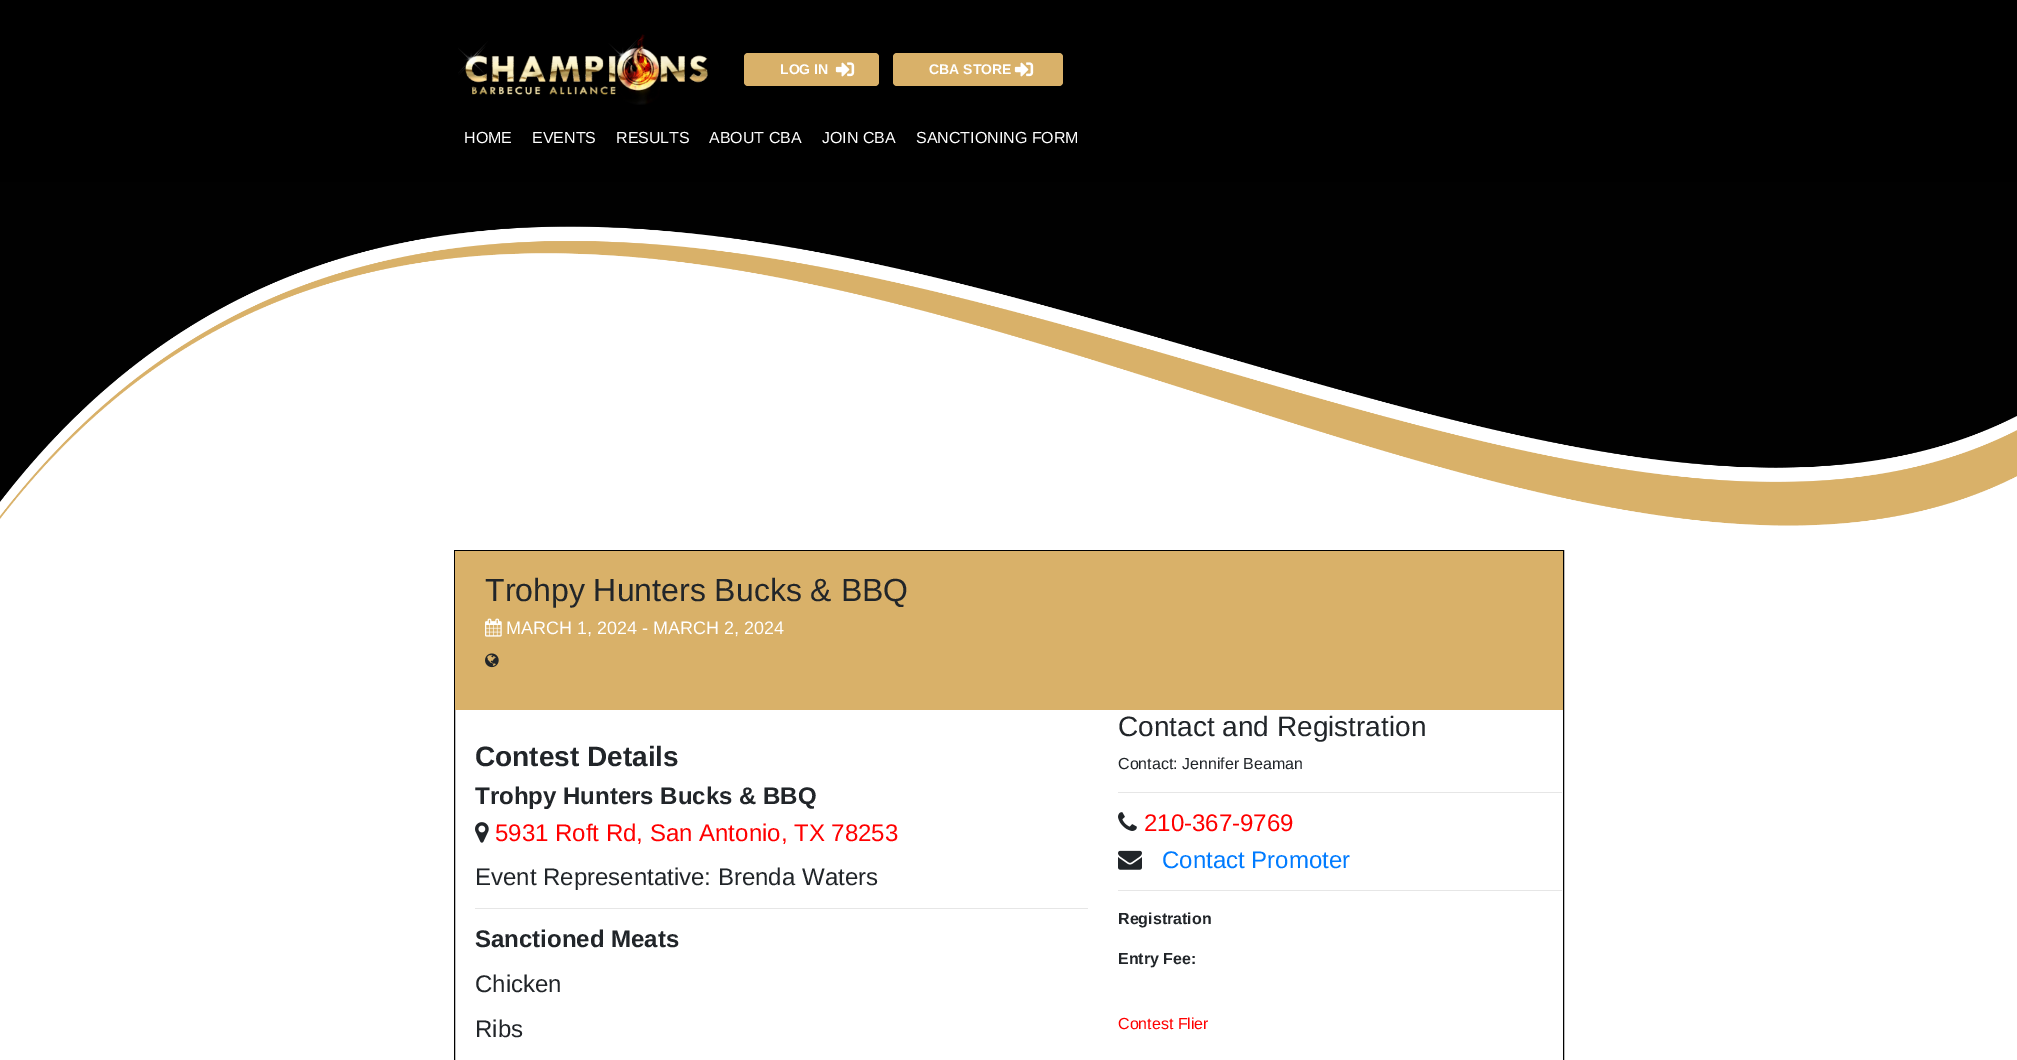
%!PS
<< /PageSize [2017 1060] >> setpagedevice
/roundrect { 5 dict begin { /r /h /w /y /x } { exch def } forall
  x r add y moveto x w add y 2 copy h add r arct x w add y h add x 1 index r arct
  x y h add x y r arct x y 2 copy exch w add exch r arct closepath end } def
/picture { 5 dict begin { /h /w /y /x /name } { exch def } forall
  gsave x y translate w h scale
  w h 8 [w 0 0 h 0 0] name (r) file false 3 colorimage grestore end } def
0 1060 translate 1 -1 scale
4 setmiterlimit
1 setgray
0 0 2017 1060 rectfill
0 setgray
0 0 2017 182 rectfill
(img1.rgb) 458 34 250 71 picture
0.851 0.694 0.412 setrgbcolor
744 53 135 33 4 roundrect fill
(img2.rgb) 835 62 20 15 picture
/LiberationSans-Bold [14 0 0 -14 0 0] selectfont
1 setgray
780 74 moveto (LOG IN) show
0.851 0.694 0.412 setrgbcolor
893 53 170 33 4 roundrect fill
(img2.rgb) 1014 62 20 15 picture
1 setgray
929 74 moveto (CBA STORE) show
/LiberationSans-Regular [16 0 0 -16 0 0] selectfont
464 143 moveto (HOME) show
532 143 moveto (EVENTS) show
616 143 moveto (RESULTS) show
709 143 moveto (ABOUT CBA) show
822 143 moveto (JOIN CBA) show
916 143 moveto (SANCTIONING FORM) show
(img3.rgb) 0 182 2017 344 picture
0 setgray
454.5 550.5 1109 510 rectstroke
0.851 0.694 0.412 setrgbcolor
455 551 1108 159 rectfill
/LiberationSans-Regular [32 0 0 -32 0 0] selectfont
0.129 0.145 0.161 setrgbcolor
485 601 moveto (Trohpy Hunters Bucks & BBQ) show
(img4.rgb) 485 618 17 19 picture
/LiberationSans-Regular [18 0 0 -18 0 0] selectfont
1 setgray
506 634 moveto (MARCH 1, 2024 - MARCH 2, 2024) show
(img5.rgb) 485 653 14 15 picture
/LiberationSans-Bold [28 0 0 -28 0 0] selectfont
0.129 0.145 0.161 setrgbcolor
475 766 moveto (Contest Details) show
/LiberationSans-Bold [24 0 0 -24 0 0] selectfont
475 804 moveto (Trohpy Hunters Bucks & BBQ) show
(img6.rgb) 475 822 14 21 picture
/LiberationSans-Regular [24 0 0 -24 0 0] selectfont
1 0 0 setrgbcolor
495 841 moveto (5931 Roft Rd, San Antonio, TX 78253) show
0.129 0.145 0.161 setrgbcolor
475 885 moveto (Event Representative: Brenda Waters) show
0.902 setgray
475 908 613 1 rectfill
/LiberationSans-Bold [24 0 0 -24 0 0] selectfont
0.129 0.145 0.161 setrgbcolor
475 947 moveto (Sanctioned Meats) show
/LiberationSans-Regular [24 0 0 -24 0 0] selectfont
475 992 moveto (Chicken) show
475 1037 moveto (Ribs) show
/LiberationSans-Regular [28 0 0 -28 0 0] selectfont
1118 736 moveto (Contact and Registration) show
/LiberationSans-Regular [16 0 0 -16 0 0] selectfont
1118 769 moveto (Contact: Jennifer Beaman) show
0.902 setgray
1118 792 444 1 rectfill
(img7.rgb) 1118 812 19 19 picture
/LiberationSans-Regular [24 0 0 -24 0 0] selectfont
1 0 0 setrgbcolor
1144 831 moveto (210-367-9769) show
(img8.rgb) 1118 850 24 20 picture
0 0.482 1 setrgbcolor
1162 868 moveto (Contact Promoter) show
0.902 setgray
1118 890 444 1 rectfill
/LiberationSans-Bold [16 0 0 -16 0 0] selectfont
0.129 0.145 0.161 setrgbcolor
1118 924 moveto (Registration) show
1118 964 moveto (Entry Fee:) show
/LiberationSans-Regular [16 0 0 -16 0 0] selectfont
1 0 0 setrgbcolor
1118 1029 moveto (Contest Flier) show
showpage
